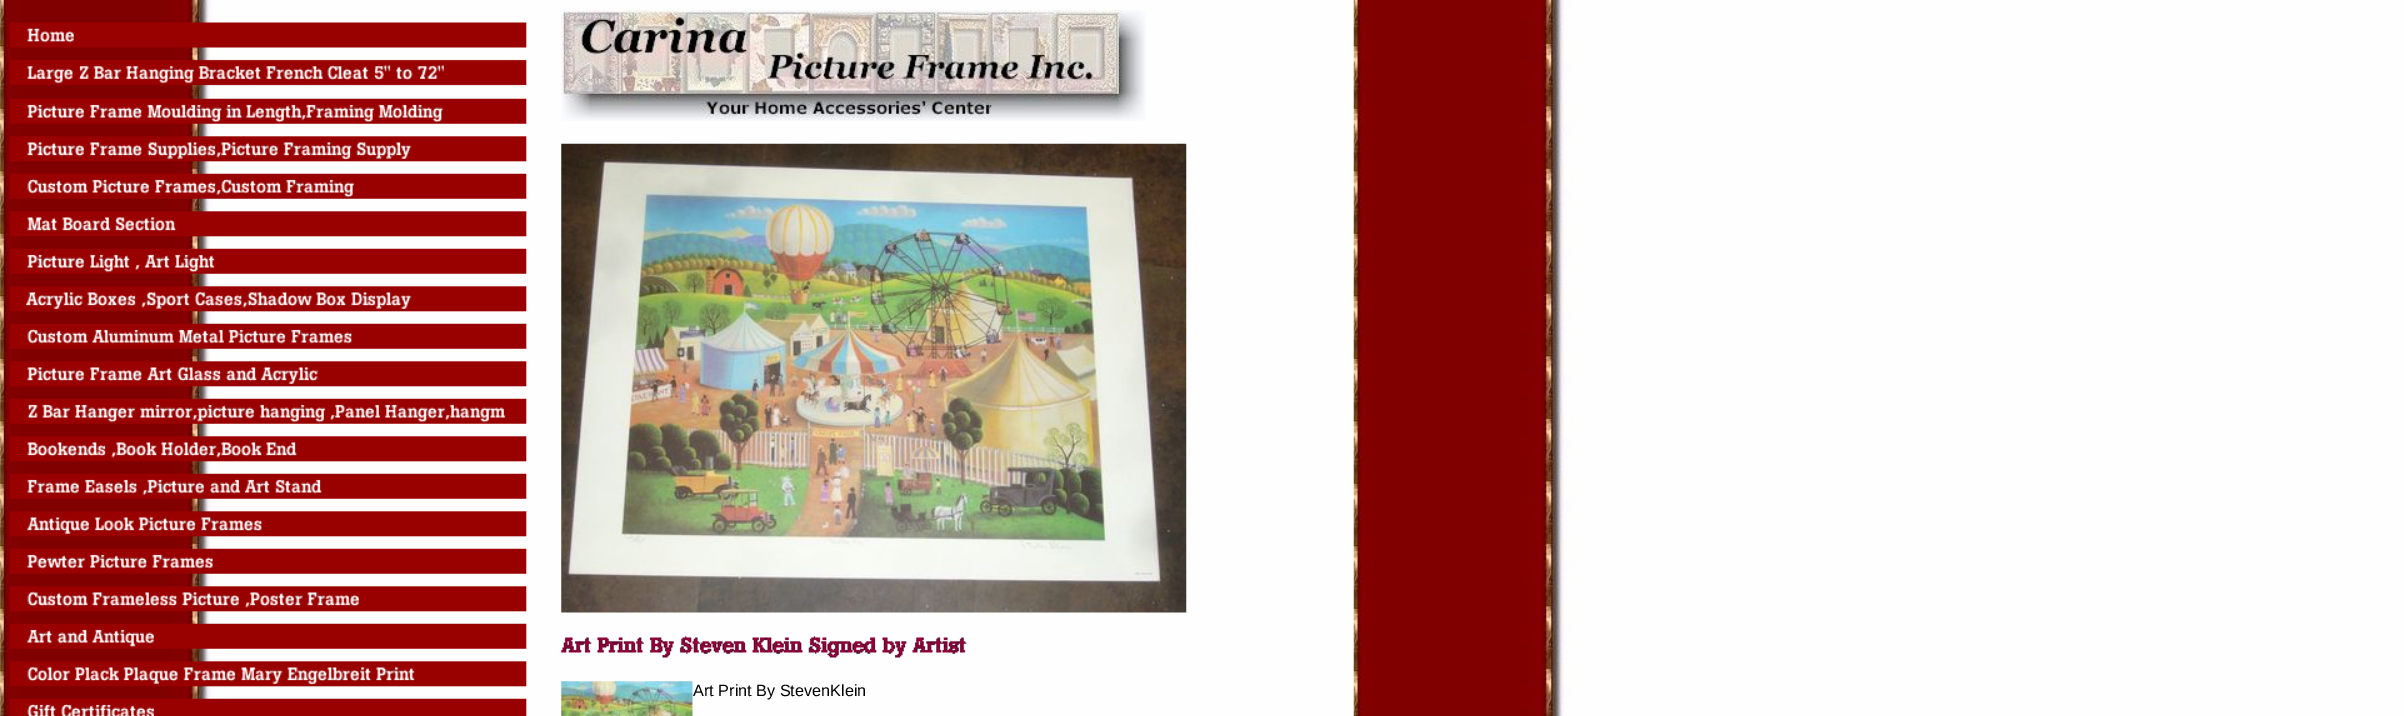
%!PS
<< /PageSize [2404 716] >> setpagedevice
/picture { 5 dict begin { /h /w /y /x /name } { exch def } forall
  gsave x y translate w h scale
  w h 8 [w 0 0 h 0 0] name (r) file false 3 colorimage grestore end } def
0 716 translate 1 -1 scale
4 setmiterlimit
1 setgray
0 0 2404 716 rectfill
(img1.rgb) 0 0 2404 716 picture
(img2.rgb) 10 22 517 694 picture
(img3.rgb) 561 10 585 111 picture
(img4.rgb) 561 143 626 470 picture
(img5.rgb) 561 636 406 22 picture
(img6.rgb) 561 681 132 35 picture
/LiberationSans-Regular [16.25 0 0 -16.25 0 0] selectfont
0 setgray
693 696 moveto (Art Print By StevenKlein) show
showpage
